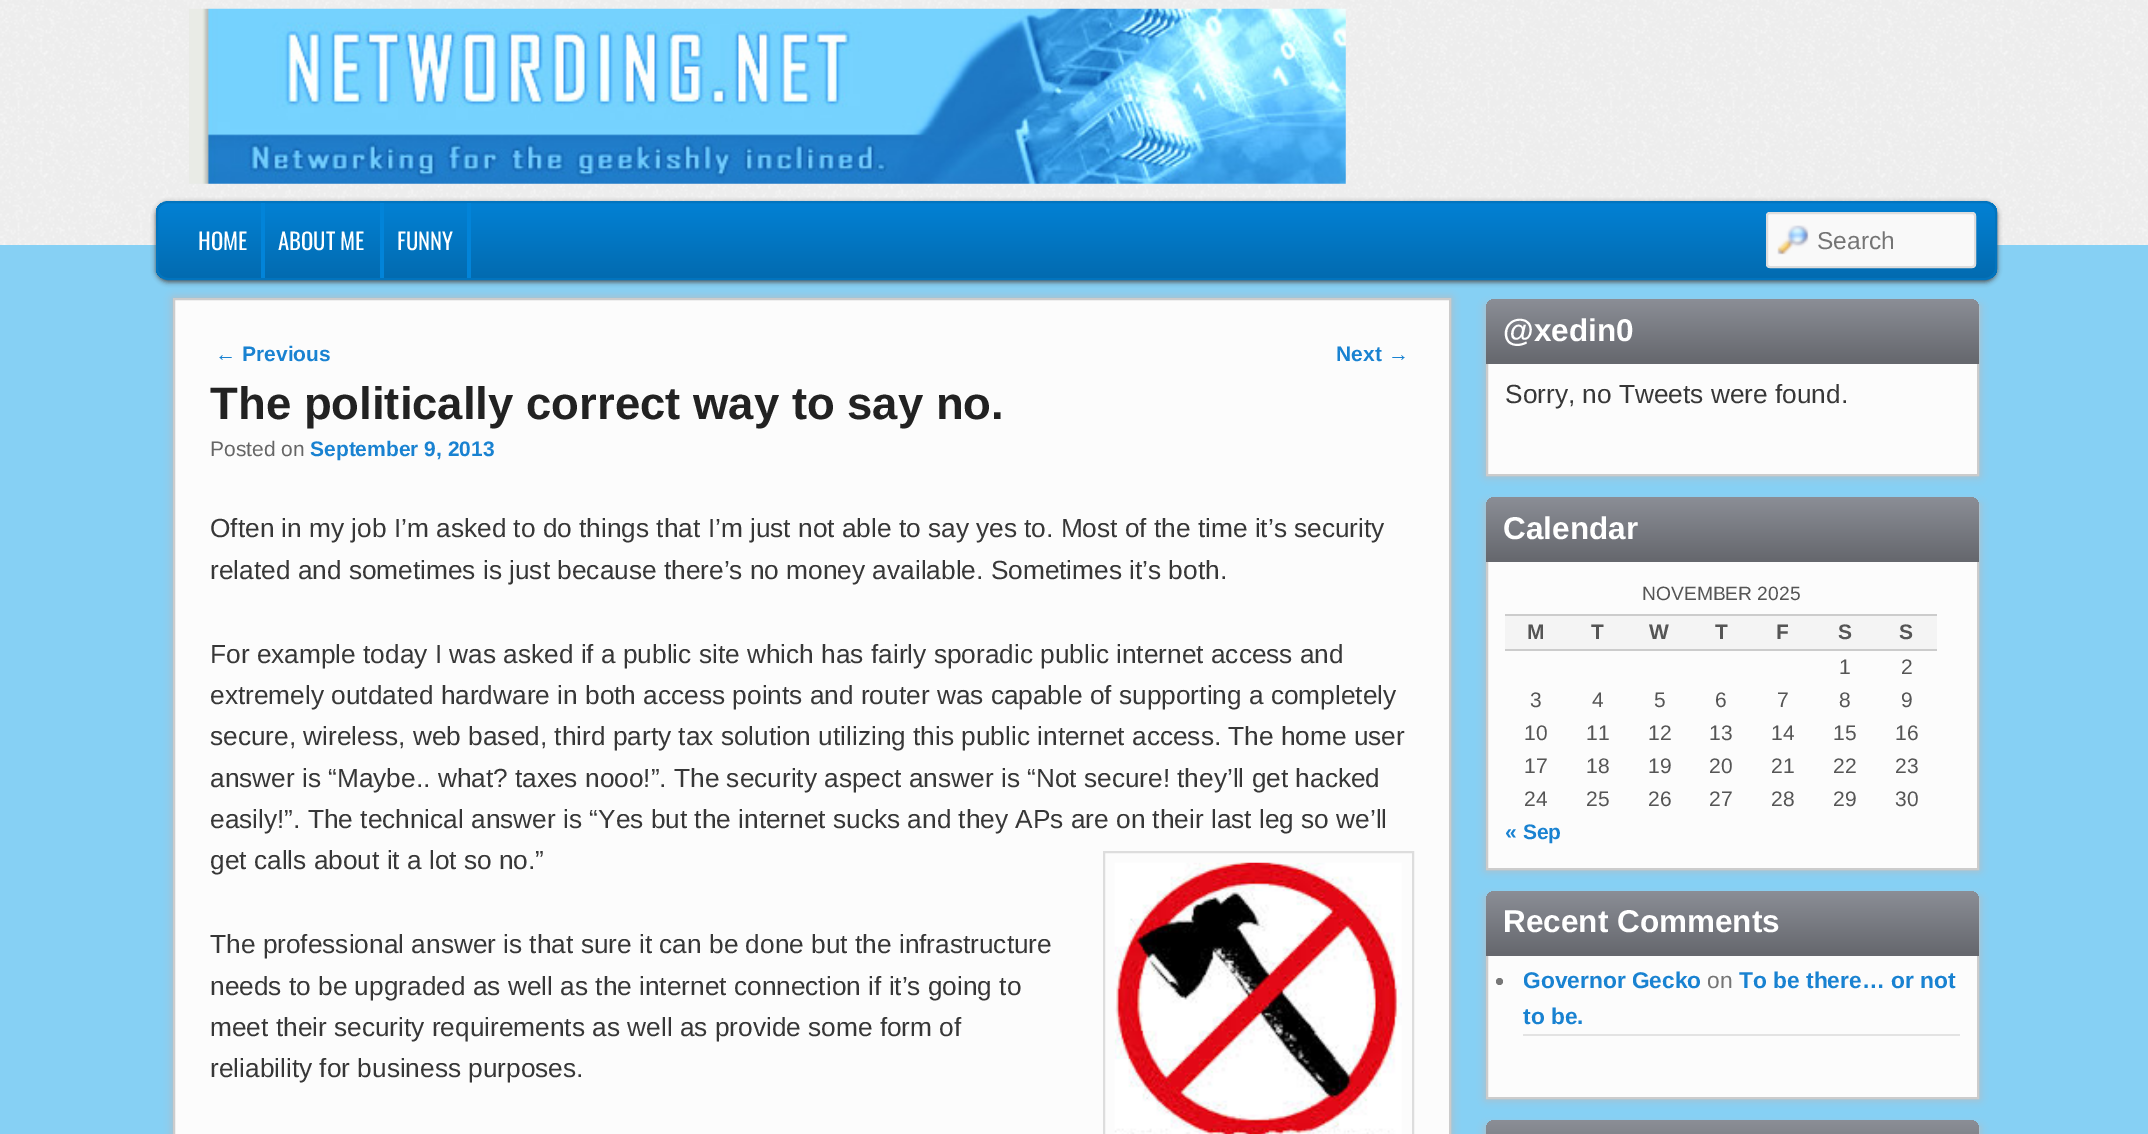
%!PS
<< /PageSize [2148 1134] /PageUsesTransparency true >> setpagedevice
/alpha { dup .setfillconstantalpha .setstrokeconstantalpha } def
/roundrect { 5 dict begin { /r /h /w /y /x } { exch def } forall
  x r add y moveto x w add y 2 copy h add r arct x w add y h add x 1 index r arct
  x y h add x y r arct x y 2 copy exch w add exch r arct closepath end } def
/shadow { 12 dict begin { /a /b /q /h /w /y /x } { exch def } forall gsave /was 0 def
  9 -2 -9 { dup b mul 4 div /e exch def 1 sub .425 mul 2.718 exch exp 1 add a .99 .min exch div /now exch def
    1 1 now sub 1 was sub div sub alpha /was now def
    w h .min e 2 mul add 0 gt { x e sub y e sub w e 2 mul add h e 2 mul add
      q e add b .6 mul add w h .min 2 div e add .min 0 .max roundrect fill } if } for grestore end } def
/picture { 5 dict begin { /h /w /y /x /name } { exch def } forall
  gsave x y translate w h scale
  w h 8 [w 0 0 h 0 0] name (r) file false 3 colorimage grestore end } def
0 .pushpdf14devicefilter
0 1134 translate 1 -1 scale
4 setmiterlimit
0.525 0.816 0.957 setrgbcolor
0 0 2148 1134 rectfill
(img1.rgb) 0 0 2148 245 picture
(img2.rgb) 189 8 1157 176 picture
0.333 setgray
156 203 1841 79 12 2.5 1 shadow
gsave
156 201 1841 79 12 roundrect clip newpath
gsave newpath 156 203 moveto 1997 203 lineto 1997 278 lineto 156 278 lineto closepath clip newpath
<< /ShadingType 2 /ColorSpace /DeviceRGB /Coords [1076 203 1076 278] /Extend [true true] /Function << /FunctionType 2 /Domain [0 1] /C0 [0.008 0.506 0.831] /C1 [0.008 0.42 0.69] /N 1 >> >> shfill grestore
grestore
0.008 0.455 0.745 setrgbcolor
2 setlinewidth
157 202 1839 77 11 roundrect stroke
0.008 0.518 0.851 setrgbcolor
261 203 4 75 rectfill
/Oswald-Regular [22.75 0 0 -22.75 0 0] selectfont
1 setgray
198 250 moveto (HOME) show
0.008 0.518 0.851 setrgbcolor
380 203 4 75 rectfill
1 setgray
278 250 moveto (ABOUT ME) show
0.008 0.518 0.851 setrgbcolor
467 203 4 75 rectfill
1 setgray
397 250 moveto (FUNNY) show
0.976 setgray
1766 212 210 56 4 roundrect fill
(img3.rgb) 1777 225 32 30 picture
0.867 setgray
1767 213 208 54 3 roundrect stroke
/LiberationSans-Regular [24.5 0 0 -24.5 0 0] selectfont
0.459 setgray
1817 249 moveto (Search) show
0.733 setgray
173 298 1278 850 0 4.5 1 shadow
0.988 setgray
newpath 174 299 moveto 1450 299 lineto 1450 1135 lineto 174 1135 lineto closepath gsave fill grestore
0.8 setgray
stroke
/LiberationSans-Regular [21 0 0 -21 0 0] selectfont
0.098 0.51 0.82 setrgbcolor
215 361 moveto (←) show
/LiberationSans-Bold [21 0 0 -21 0 0] selectfont
242 361 moveto (Previous) show
1336 361 moveto (Next) show
/LiberationSans-Regular [21 0 0 -21 0 0] selectfont
1388 361 moveto (→) show
/LiberationSans-Bold [45.5 0 0 -45.5 0 0] selectfont
0.133 setgray
210 419 moveto (The politically correct way to say no.) show
/LiberationSans-Regular [21 0 0 -21 0 0] selectfont
0.4 setgray
210 456 moveto (Posted on) show
/LiberationSans-Bold [21 0 0 -21 0 0] selectfont
0.098 0.51 0.82 setrgbcolor
310 456 moveto (September 9, 2013) show
/LiberationSans-Regular [26.25 0 0 -26.25 0 0] selectfont
0.216 setgray
210 537 moveto (Often in my job I’m asked to do things that I’m just not able to say yes to. Most of the time it’s security) show
210 579 moveto (related and sometimes is just because there’s no money available. Sometimes it’s both.) show
210 663 moveto (For example today I was asked if a public site which has fairly sporadic public internet access and) show
210 704 moveto (extremely outdated hardware in both access points and router was capable of supporting a completely) show
210 745 moveto (secure, wireless, web based, third party tax solution utilizing this public internet access. The home user) show
210 787 moveto (answer is “Maybe.. what? taxes nooo!”. The security aspect answer is “Not secure! they’ll get hacked) show
210 828 moveto (easily!”. The technical answer is “Yes but the internet sucks and they APs are on their last leg so we’ll) show
210 869 moveto (get calls about it a lot so no.”) show
0.867 setgray
1104 852 309 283 rectstroke
(img4.rgb) 1114 862 288 272 picture
0.216 setgray
210 953 moveto (The professional answer is that sure it can be done but the infrastructure) show
210 995 moveto (needs to be upgraded as well as the internet connection if it’s going to) show
210 1036 moveto (meet their security requirements as well as provide some form of) show
210 1077 moveto (reliability for business purposes.) show
0.733 setgray
1486 306 493 170 0 4.5 1 shadow
0.988 setgray
1488 364 489 110 rectfill
0.8 setgray
1487 307 491 168 rectstroke
gsave newpath 1495 299 moveto 1970 299 lineto 1975 299 1979 303 1979 308 curveto 1979 362 lineto 1486 362 lineto 1486 308 lineto 1486 303 1490 299 1495 299 curveto closepath clip newpath
<< /ShadingType 2 /ColorSpace /DeviceRGB /Coords [1733 299 1733 362] /Extend [true true] /Function << /FunctionType 2 /Domain [0 1] /C0 [0.545 0.557 0.588] /C1 [0.4 0.408 0.431] /N 1 >> >> shfill grestore
0.4 0.408 0.431 setrgbcolor
1486 362 493 2 rectfill
/LiberationSans-Bold [31.5 0 0 -31.5 0 0] selectfont
1 setgray
1503 341 moveto (@xedin0) show
/LiberationSans-Regular [26.25 0 0 -26.25 0 0] selectfont
0.216 setgray
1505 403 moveto (Sorry, no Tweets were found.) show
0.733 setgray
1486 504 493 366 0 4.5 1 shadow
0.988 setgray
1488 562 489 306 rectfill
0.8 setgray
1487 505 491 364 rectstroke
gsave newpath 1495 497 moveto 1970 497 lineto 1975 497 1979 501 1979 506 curveto 1979 560 lineto 1486 560 lineto 1486 506 lineto 1486 501 1490 497 1495 497 curveto closepath clip newpath
<< /ShadingType 2 /ColorSpace /DeviceRGB /Coords [1733 497 1733 560] /Extend [true true] /Function << /FunctionType 2 /Domain [0 1] /C0 [0.545 0.557 0.588] /C1 [0.4 0.408 0.431] /N 1 >> >> shfill grestore
0.4 0.408 0.431 setrgbcolor
1486 560 493 2 rectfill
/LiberationSans-Bold [31.5 0 0 -31.5 0 0] selectfont
1 setgray
1503 539 moveto (Calendar) show
/LiberationSans-Regular [19.25 0 0 -19.25 0 0] selectfont
0.333 setgray
1642 600 moveto (NOVEMBER 2025) show
0.957 setgray
1505 616 432 33 rectfill
0.8 setgray
1505 614 432 2 rectfill
1505 649 432 2 rectfill
/LiberationSans-Bold [21 0 0 -21 0 0] selectfont
0.333 setgray
1527 639 moveto (M) show
1591 639 moveto (T) show
1649 639 moveto (W) show
1715 639 moveto (T) show
1776 639 moveto (F) show
1838 639 moveto (S) show
1899 639 moveto (S) show
/LiberationSans-Regular [21 0 0 -21 0 0] selectfont
1839 674 moveto (1) show
1901 674 moveto (2) show
1530 707 moveto (3) show
1592 707 moveto (4) show
1654 707 moveto (5) show
1715 707 moveto (6) show
1777 707 moveto (7) show
1839 707 moveto (8) show
1901 707 moveto (9) show
1524 740 moveto (10) show
1586 740 moveto (11) show
1648 740 moveto (12) show
1709 740 moveto (13) show
1771 740 moveto (14) show
1833 740 moveto (15) show
1895 740 moveto (16) show
1524 773 moveto (17) show
1586 773 moveto (18) show
1648 773 moveto (19) show
1709 773 moveto (20) show
1771 773 moveto (21) show
1833 773 moveto (22) show
1895 773 moveto (23) show
1524 806 moveto (24) show
1586 806 moveto (25) show
1648 806 moveto (26) show
1709 806 moveto (27) show
1771 806 moveto (28) show
1833 806 moveto (29) show
1895 806 moveto (30) show
/LiberationSans-Bold [21 0 0 -21 0 0] selectfont
0.098 0.51 0.82 setrgbcolor
1505 839 moveto (« Sep) show
0.733 setgray
1486 898 493 201 0 4.5 1 shadow
0.988 setgray
1488 956 489 141 rectfill
0.8 setgray
1487 899 491 199 rectstroke
gsave newpath 1495 891 moveto 1970 891 lineto 1975 891 1979 895 1979 900 curveto 1979 954 lineto 1486 954 lineto 1486 900 lineto 1486 895 1490 891 1495 891 curveto closepath clip newpath
<< /ShadingType 2 /ColorSpace /DeviceRGB /Coords [1733 891 1733 954] /Extend [true true] /Function << /FunctionType 2 /Domain [0 1] /C0 [0.545 0.557 0.588] /C1 [0.4 0.408 0.431] /N 1 >> >> shfill grestore
0.4 0.408 0.431 setrgbcolor
1486 954 493 2 rectfill
/LiberationSans-Bold [31.5 0 0 -31.5 0 0] selectfont
1 setgray
1503 932 moveto (Recent Comments) show
0.89 setgray
1523 1034 437 2 rectfill
0.467 setgray
newpath 1499.5 981.5 3.5 0 360 arc closepath fill
/LiberationSans-Bold [22.75 0 0 -22.75 0 0] selectfont
0.098 0.51 0.82 setrgbcolor
1523 988 moveto (Governor Gecko) show
/LiberationSans-Regular [22.75 0 0 -22.75 0 0] selectfont
0.459 setgray
1707 988 moveto (on) show
/LiberationSans-Bold [22.75 0 0 -22.75 0 0] selectfont
0.098 0.51 0.82 setrgbcolor
1739 988 moveto (To be there… or not) show
1523 1024 moveto (to be.) show
0.733 setgray
1486 1127 493 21 0 4.5 1 shadow
0.8 setgray
1487 1128 491 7 rectstroke
gsave newpath 1495 1120 moveto 1970 1120 lineto 1975 1120 1979 1124 1979 1129 curveto 1979 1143 lineto 1486 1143 lineto 1486 1129 lineto 1486 1124 1490 1120 1495 1120 curveto closepath clip newpath
<< /ShadingType 2 /ColorSpace /DeviceRGB /Coords [1733 1120 1733 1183] /Extend [true true] /Function << /FunctionType 2 /Domain [0 1] /C0 [0.545 0.557 0.588] /C1 [0.4 0.408 0.431] /N 1 >> >> shfill grestore
.poppdf14devicefilter showpage
